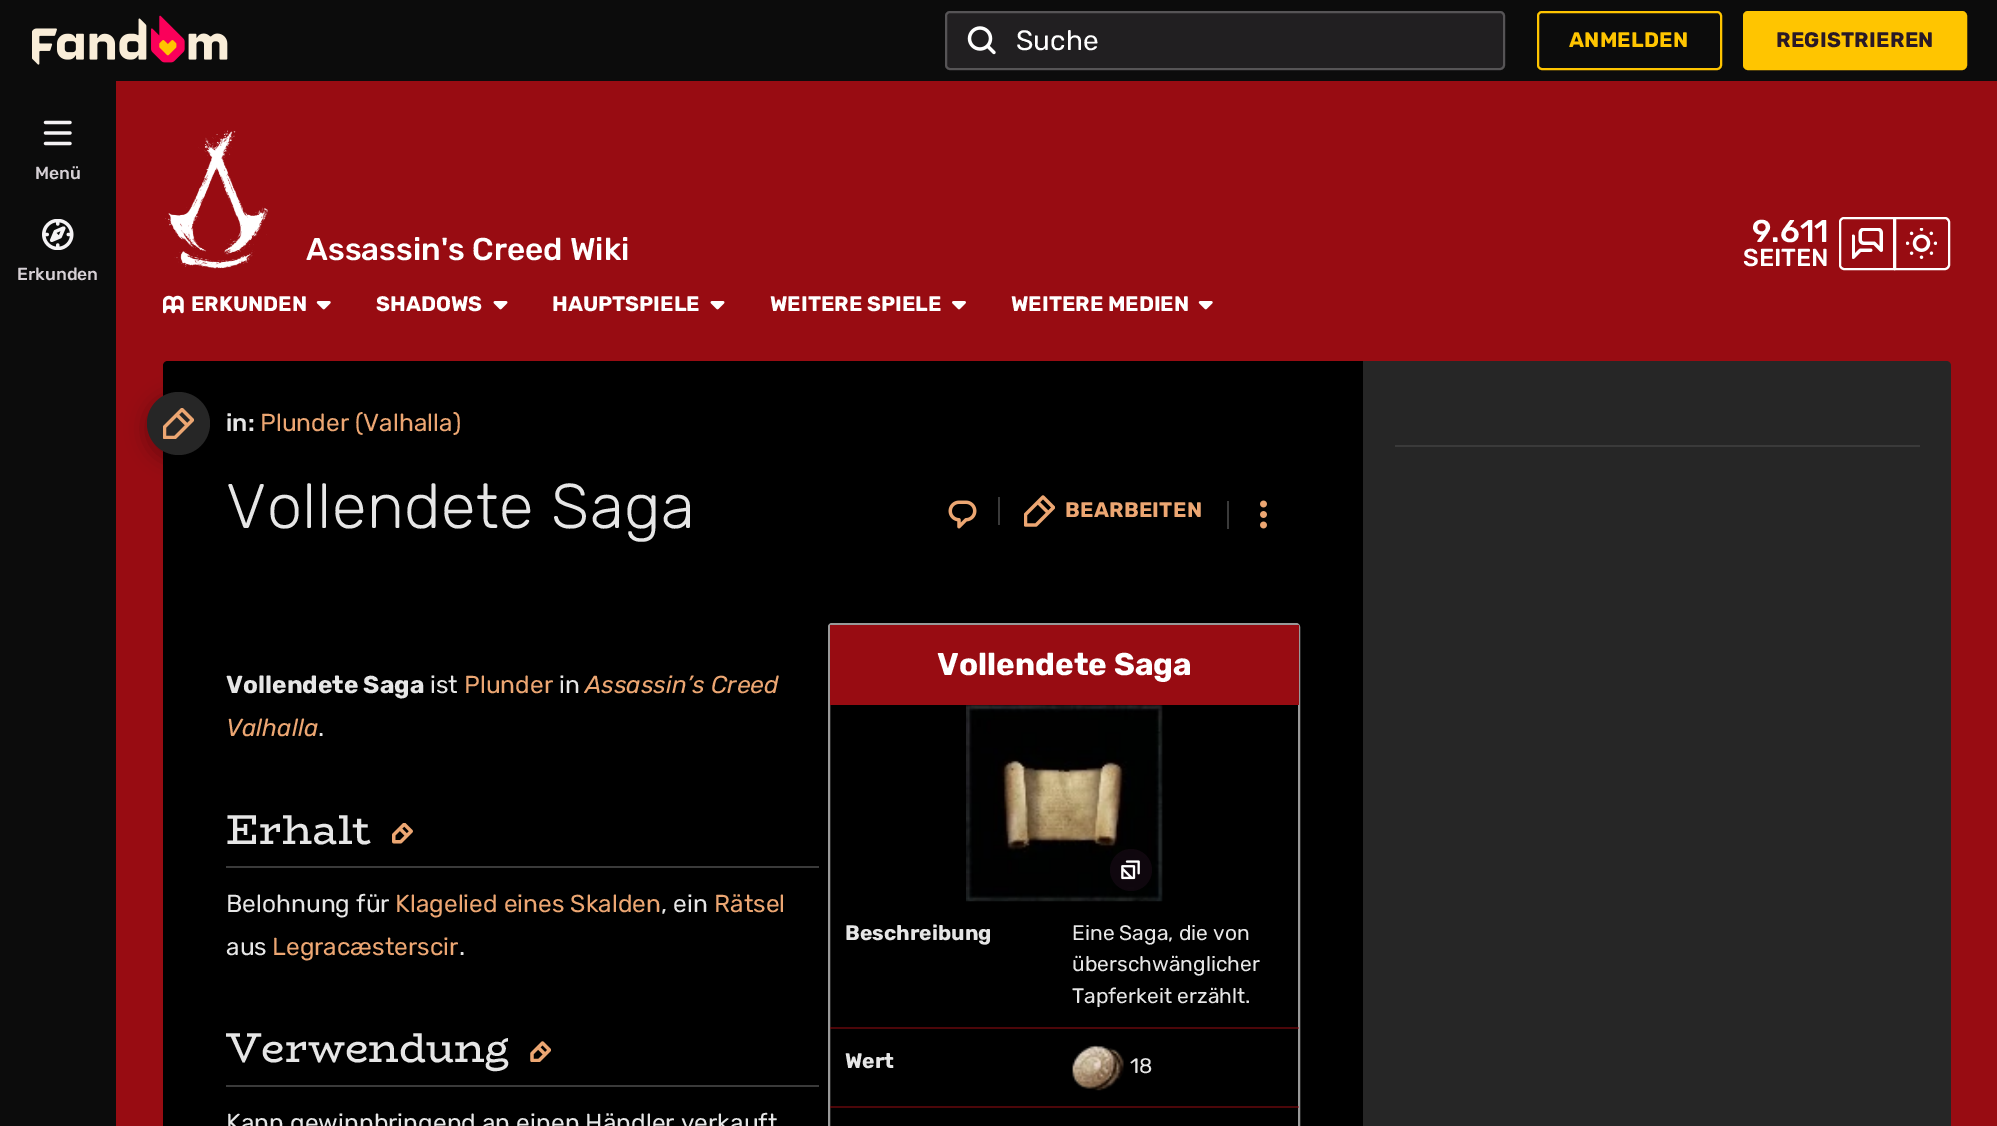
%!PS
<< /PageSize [1997 1126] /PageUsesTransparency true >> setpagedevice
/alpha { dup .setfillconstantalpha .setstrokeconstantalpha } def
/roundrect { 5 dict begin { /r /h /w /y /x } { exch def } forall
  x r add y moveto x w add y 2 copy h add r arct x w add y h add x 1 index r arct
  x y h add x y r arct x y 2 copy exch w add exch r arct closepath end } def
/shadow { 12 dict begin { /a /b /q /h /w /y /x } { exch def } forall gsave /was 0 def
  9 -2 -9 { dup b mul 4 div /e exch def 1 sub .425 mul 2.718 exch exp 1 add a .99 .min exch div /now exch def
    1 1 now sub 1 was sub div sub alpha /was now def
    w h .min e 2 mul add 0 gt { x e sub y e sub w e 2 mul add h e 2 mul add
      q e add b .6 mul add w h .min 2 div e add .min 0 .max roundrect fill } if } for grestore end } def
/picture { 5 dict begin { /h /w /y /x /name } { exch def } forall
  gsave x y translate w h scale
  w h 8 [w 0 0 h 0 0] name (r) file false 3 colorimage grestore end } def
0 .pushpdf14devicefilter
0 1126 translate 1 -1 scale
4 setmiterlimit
0.596 0.047 0.071 setrgbcolor
0 0 1997 1126 rectfill
0.047 setgray
0 0 1997 81 rectfill
(img1.rgb) 32 15 196 50 picture
0.129 0.122 0.129 setrgbcolor
945 11 560 59 5 roundrect fill
0.25 alpha
0.961 0.953 0.961 setrgbcolor
2 setlinewidth
946 12 558 57 4 roundrect stroke
1 alpha
(img2.rgb) 967 26 29 29 picture
/Rubik-Regular [28 0 0 -28 0 0] selectfont
1 setgray
1016 50 moveto (Suche) show
1 0.773 0 setrgbcolor
1538 12 183 57 4 roundrect stroke
/Rubik-Bold [21 0 0 -21 0 0] selectfont
1569 47 moveto 0.25 0 (ANMELDEN) ashow
1744 12 222 57 4 roundrect gsave fill grestore
stroke
0.161 0.098 0.153 setrgbcolor
1776 47 moveto 0.25 0 (REGISTRIEREN) ashow
0 setgray
newpath 168 361 moveto 1363 361 lineto 1363 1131 lineto 168 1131 lineto 165 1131 163 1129 163 1126 curveto 163 366 lineto 163 363 165 361 168 361 curveto closepath fill
147 397 63 63 31.5 10.5 0.3 shadow
0.047 setgray
0 81 116 1045 rectfill
(img3.rgb) 43 120 29 26 picture
/Rubik-Medium [17.5 0 0 -17.5 0 0] selectfont
0.839 0.816 0.835 setrgbcolor
35 179 moveto (Menü) show
(img4.rgb) 42 219 32 31 picture
17 280 moveto (Erkunden) show
(img5.rgb) 165 130 103 139 picture
/Rubik-Medium [31.5 0 0 -31.5 0 0] selectfont
1 setgray
306 260 moveto (Assassin's Creed Wiki) show
1752 242 moveto (9.611) show
/Rubik-Medium [24.5 0 0 -24.5 0 0] selectfont
1743 266 moveto (SEITEN) show
newpath 1844 218 moveto 1894 218 lineto 1894 269 lineto 1844 269 lineto 1842 269 1840 267 1840 265 curveto 1840 222 lineto 1840 220 1842 218 1844 218 curveto closepath stroke
(img6.rgb) 1852 228 31 31 picture
newpath 1895 218 moveto 1945 218 lineto 1947 218 1949 220 1949 222 curveto 1949 265 lineto 1949 267 1947 269 1945 269 curveto 1895 269 lineto closepath stroke
(img7.rgb) 1906 228 31 31 picture
(img8.rgb) 163 295 21 19 picture
/Rubik-Bold [21 0 0 -21 0 0] selectfont
191 311 moveto (ERKUNDEN) show
(img9.rgb) 316 301 15 9 picture
376 311 moveto (SHADOWS) show
(img10.rgb) 493 301 15 9 picture
552 311 moveto (HAUPTSPIELE) show
(img10.rgb) 710 301 15 9 picture
770 311 moveto (WEITERE SPIELE) show
(img11.rgb) 952 301 14 9 picture
1011 311 moveto (WEITERE MEDIEN) show
(img9.rgb) 1198 301 15 9 picture
0.149 setgray
newpath 178.5 423.5 31.5 0 360 arc closepath fill
(img12.rgb) 163 408 31 31 picture
/Rubik-Medium [24.5 0 0 -24.5 0 0] selectfont
0.902 setgray
226 431 moveto (in:) show
/Rubik-Regular [24.5 0 0 -24.5 0 0] selectfont
0.925 0.651 0.447 setrgbcolor
260 431 moveto (Plunder \(Valhalla\)) show
/Rubik-Light [63 0 0 -63 0 0] selectfont
0.902 setgray
226 528 moveto 0.5 0 (Vollendete Saga) ashow
(img13.rgb) 948 500 29 29 picture
0.227 setgray
998 497 2 28 rectfill
(img14.rgb) 1024 495 31 32 picture
/Rubik-Bold [21 0 0 -21 0 0] selectfont
0.925 0.651 0.447 setrgbcolor
1065 517 moveto 0.25 0 (BEARBEITEN) ashow
0.227 setgray
1227 501 2 28 rectfill
(img15.rgb) 1260 500 7 29 picture
/Rubik-Bold [24.5 0 0 -24.5 0 0] selectfont
0.902 setgray
226 693 moveto (Vollendete Saga) show
/Rubik-Regular [24.5 0 0 -24.5 0 0] selectfont
430 693 moveto (ist) show
0.925 0.651 0.447 setrgbcolor
464 693 moveto (Plunder) show
0.902 setgray
559 693 moveto (in) show
/Rubik-Italic [24.5 0 0 -24.5 0 0] selectfont
0.925 0.651 0.447 setrgbcolor
585 693 moveto (Assassin’s Creed) show
226 736 moveto (Valhalla) show
/Rubik-Regular [24.5 0 0 -24.5 0 0] selectfont
0.902 setgray
318 736 moveto (.) show
0.6 setgray
829 624 470 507 3 roundrect stroke
0.596 0.047 0.071 setrgbcolor
830 625 469 80 rectfill
/Rubik-Bold [31.5 0 0 -31.5 0 0] selectfont
1 setgray
937 675 moveto (Vollendete Saga) show
(img16.rgb) 966 705 197 197 picture
0.5 alpha
0.118 0.047 0.106 setrgbcolor
newpath 1131 870 21 0 360 arc closepath fill
1 alpha
(img17.rgb) 1121 860 19 20 picture
/Rubik-Bold [21 0 0 -21 0 0] selectfont
0.902 setgray
845 940 moveto (Beschreibung) show
/Rubik-Regular [21 0 0 -21 0 0] selectfont
1072 940 moveto (Eine Saga, die von) show
1072 971 moveto (überschwänglicher) show
1072 1003 moveto (Tapferkeit erzählt.) show
0.5 alpha
0.596 0.047 0.071 setrgbcolor
830 1027 469 2 rectfill
/Rubik-Bold [21 0 0 -21 0 0] selectfont
1 alpha
0.902 setgray
845 1068 moveto (Wert) show
(img18.rgb) 1072 1045 52 46 picture
/Rubik-Regular [21 0 0 -21 0 0] selectfont
1130 1073 moveto (18) show
0.5 alpha
0.596 0.047 0.071 setrgbcolor
830 1106 469 2 rectfill
1 alpha
0.227 setgray
226 866 593 2 rectfill
/BioRhyme-Regular [42 0 0 -42 0 0] selectfont
0.902 setgray
226 844 moveto (Erhalt) show
(img19.rgb) 392 823 21 21 picture
/Rubik-Regular [24.5 0 0 -24.5 0 0] selectfont
226 912 moveto (Belohnung für) show
0.925 0.651 0.447 setrgbcolor
395 912 moveto (Klagelied eines Skalden) show
0.902 setgray
661 912 moveto (, ein) show
0.925 0.651 0.447 setrgbcolor
714 912 moveto (Rätsel) show
0.902 setgray
226 955 moveto (aus) show
0.925 0.651 0.447 setrgbcolor
272 955 moveto (Legracæsterscir) show
0.902 setgray
459 955 moveto (.) show
0.227 setgray
226 1085 593 2 rectfill
gsave
226 1012 593 73 rectclip
/BioRhyme-Regular [42 0 0 -42 0 0] selectfont
0.902 setgray
226 1062 moveto (Verwendung) show
grestore
(img20.rgb) 530 1041 21 21 picture
0.902 setgray
226 1131 moveto (Kann gewinnbringend an einen Händler verkauft) show
0.149 setgray
newpath 1363 361 moveto 1946 361 lineto 1949 361 1951 363 1951 366 curveto 1951 1126 lineto 1951 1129 1949 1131 1946 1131 curveto 1363 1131 lineto closepath fill
0.227 setgray
1395 445 525 2 rectfill
.poppdf14devicefilter showpage
